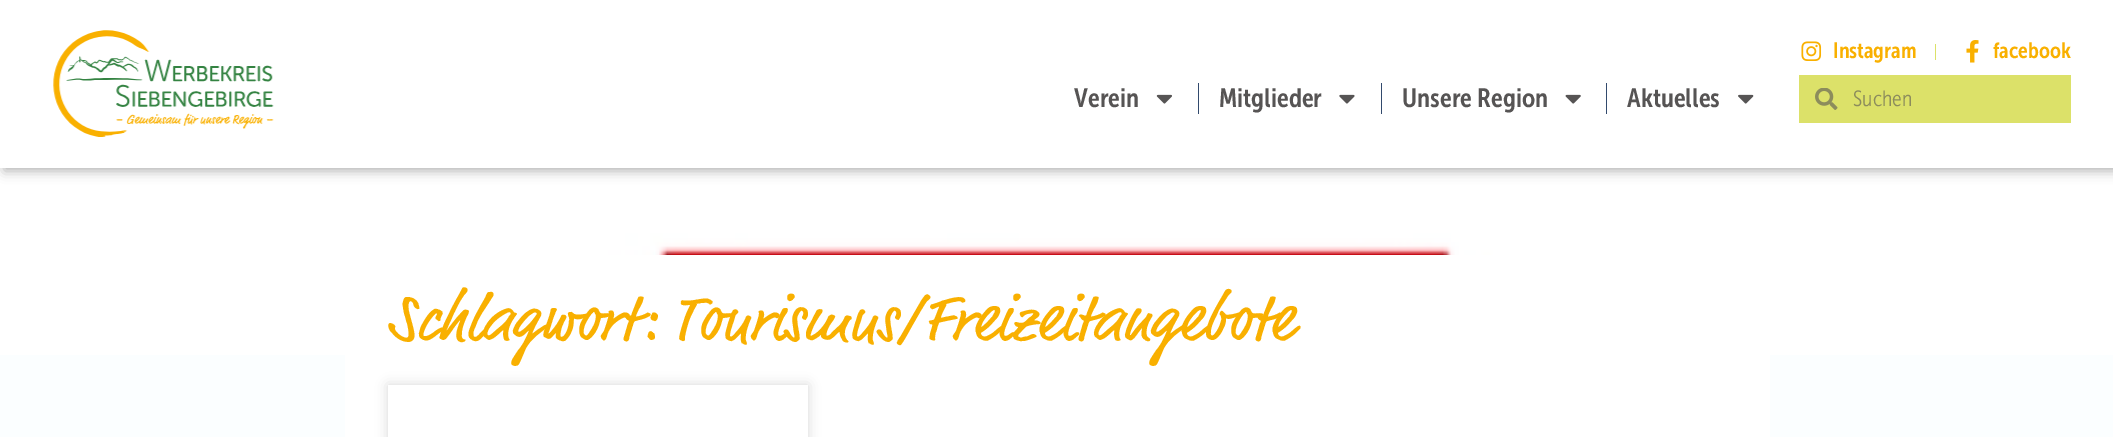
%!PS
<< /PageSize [2113 437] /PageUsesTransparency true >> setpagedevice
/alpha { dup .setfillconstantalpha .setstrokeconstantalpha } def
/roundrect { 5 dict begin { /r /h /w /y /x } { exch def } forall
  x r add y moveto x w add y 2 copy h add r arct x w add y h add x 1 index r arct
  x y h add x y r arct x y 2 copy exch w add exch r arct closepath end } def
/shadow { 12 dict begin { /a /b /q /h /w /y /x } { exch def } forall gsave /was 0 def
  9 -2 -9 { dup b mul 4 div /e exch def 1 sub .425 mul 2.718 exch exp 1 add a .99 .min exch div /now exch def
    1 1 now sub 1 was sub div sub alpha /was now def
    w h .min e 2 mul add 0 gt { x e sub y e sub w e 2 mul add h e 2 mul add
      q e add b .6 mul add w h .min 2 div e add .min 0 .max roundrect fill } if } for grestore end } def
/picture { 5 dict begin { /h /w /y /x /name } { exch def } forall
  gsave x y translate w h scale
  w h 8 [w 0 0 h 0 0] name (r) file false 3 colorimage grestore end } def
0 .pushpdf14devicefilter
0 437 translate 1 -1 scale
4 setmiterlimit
0.984 0.996 1 setrgbcolor
0 0 2113 437 rectfill
(img9.rgb) 0 168 2113 187 picture
0 setgray
4 4 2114 167 0 6 0.3 shadow
1 setgray
0 0 2113 168 rectfill
(img1.rgb) 53 30 221 107 picture
(img2.rgb) 1801 41 21 20 picture
/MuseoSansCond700-SemiBold [22 0 0 -22 0 0] selectfont
0.976 0.69 0 setrgbcolor
1833 58 moveto (Instagram) show
0.863 0.882 0.412 setrgbcolor
1935 44 1 16 rectfill
(img3.rgb) 1966 40 13 23 picture
0.976 0.69 0 setrgbcolor
1993 58 moveto (facebook) show
/MuseoSansCond700-SemiBold [26.5 0 0 -26.5 0 0] selectfont
0.337 0.329 0.329 setrgbcolor
1074 107 moveto (Verein) show
(img4.rgb) 1156 94 16 10 picture
0.196 0.29 0.427 setrgbcolor
1198 83 1 31 rectfill
0.337 0.329 0.329 setrgbcolor
1219 107 moveto (Mitglieder) show
(img5.rgb) 1339 94 16 10 picture
0.196 0.29 0.427 setrgbcolor
1381 83 1 31 rectfill
0.337 0.329 0.329 setrgbcolor
1402 107 moveto (Unsere Region) show
(img6.rgb) 1565 94 16 10 picture
0.196 0.29 0.427 setrgbcolor
1606 83 1 31 rectfill
0.337 0.329 0.329 setrgbcolor
1627 107 moveto (Aktuelles) show
(img7.rgb) 1738 94 16 10 picture
0.863 0.882 0.412 setrgbcolor
1799 75 272 48 rectfill
(img8.rgb) 1815 88 23 22 picture
/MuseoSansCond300-Light [22 0 0 -22 0 0] selectfont
0.549 0.549 0.361 setrgbcolor
1853 106 moveto (Suchen) show
1 setgray
345 255 1425 182 rectfill
/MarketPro-Regular [66 0 0 -66 0 0] selectfont
0.976 0.69 0 setrgbcolor
387 340 moveto (Schlagwort: Tourismus/Freizeitangebote) show
gsave
newpath 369 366 moveto 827 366 lineto 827 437 lineto 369 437 lineto closepath 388 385 moveto 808 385 lineto 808 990 lineto 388 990 lineto closepath eoclip newpath
0 setgray
388 385 420 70 0 6 0.15 shadow
grestore
.poppdf14devicefilter showpage
